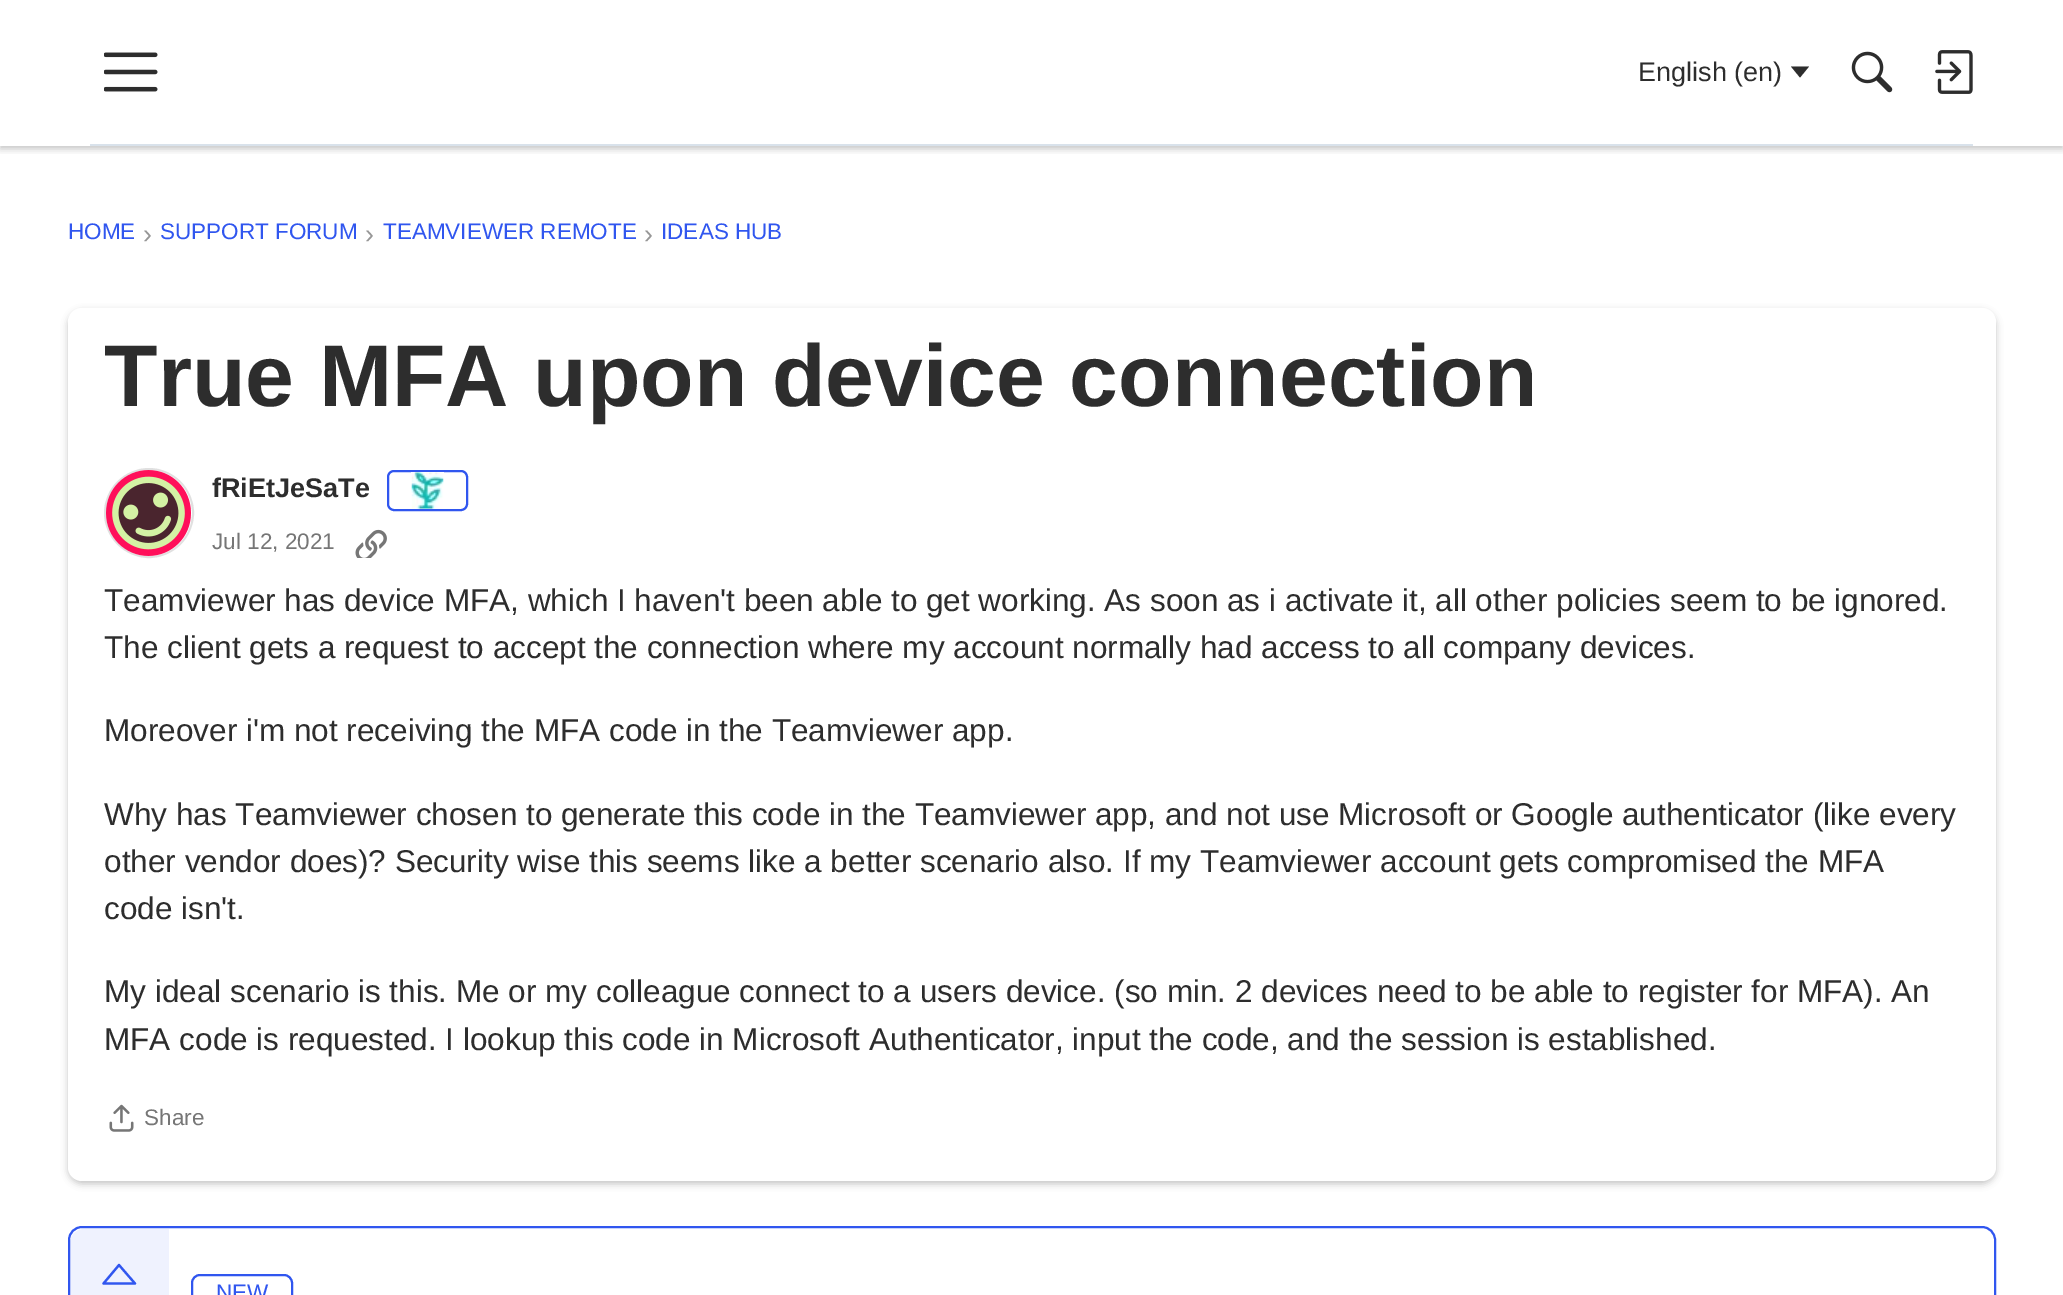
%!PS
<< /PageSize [2063 1295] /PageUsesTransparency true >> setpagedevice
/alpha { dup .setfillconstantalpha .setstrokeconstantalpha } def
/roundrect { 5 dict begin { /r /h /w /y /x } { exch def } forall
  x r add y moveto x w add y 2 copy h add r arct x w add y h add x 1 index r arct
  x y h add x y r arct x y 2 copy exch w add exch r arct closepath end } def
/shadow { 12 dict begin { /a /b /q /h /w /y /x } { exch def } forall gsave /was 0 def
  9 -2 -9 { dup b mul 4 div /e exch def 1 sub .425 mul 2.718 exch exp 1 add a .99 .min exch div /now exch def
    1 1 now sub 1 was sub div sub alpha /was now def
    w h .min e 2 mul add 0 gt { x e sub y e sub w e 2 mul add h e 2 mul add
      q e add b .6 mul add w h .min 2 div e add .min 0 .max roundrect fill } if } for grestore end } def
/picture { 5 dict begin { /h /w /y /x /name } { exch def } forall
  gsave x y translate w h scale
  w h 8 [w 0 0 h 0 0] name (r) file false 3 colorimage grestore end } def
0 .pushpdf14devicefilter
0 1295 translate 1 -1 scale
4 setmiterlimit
1 setgray
0 0 2063 1295 rectfill
gsave
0 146 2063 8 rectclip
0 setgray
0 2 2063 147 0 3.5 0.22 shadow
grestore
0.851 0.886 0.922 setrgbcolor
90 144 1883 2 rectfill
(img1.rgb) 104 52 54 40 picture
/LiberationSans-Regular [27 0 0 -27 0 0] selectfont
0.176 setgray
1638 81 moveto (English \(en\)) show
newpath 1791 66.5 moveto 1809 66.5 lineto 1800 77.5 lineto closepath fill
(img2.rgb) 1851 51 42 42 picture
(img3.rgb) 1935 50 38 44 picture
/LiberationSans-Regular [22.5 0 0 -22.5 0 0] selectfont
0.188 0.337 0.937 setrgbcolor
68 239 moveto (HOME) show
/LiberationSans-Regular [27 0 0 -27 0 0] selectfont
0.588 setgray
143 243 moveto (›) show
/LiberationSans-Regular [22.5 0 0 -22.5 0 0] selectfont
0.188 0.337 0.937 setrgbcolor
160 239 moveto (SUPPORT FORUM) show
/LiberationSans-Regular [27 0 0 -27 0 0] selectfont
0.588 setgray
365 243 moveto (›) show
/LiberationSans-Regular [22.5 0 0 -22.5 0 0] selectfont
0.188 0.337 0.937 setrgbcolor
383 239 moveto (TEAMVIEWER REMOTE) show
/LiberationSans-Regular [27 0 0 -27 0 0] selectfont
0.588 setgray
644 243 moveto (›) show
/LiberationSans-Regular [22.5 0 0 -22.5 0 0] selectfont
0.188 0.337 0.937 setrgbcolor
661 239 moveto (IDEAS HUB) show
0 setgray
68 311 1928 873 14 3.5 0.22 shadow
1 setgray
68 308 1928 873 14 roundrect fill
/LiberationSans-Bold [87.75 0 0 -87.75 0 0] selectfont
0.176 setgray
104 406 moveto (True MFA upon device connection) show
0.878 setgray
2 setlinewidth
newpath 149 513 44 0 360 arc closepath stroke
(img4.rgb) 106 470 85 86 picture
/LiberationSans-Bold [27 0 0 -27 0 0] selectfont
0.176 setgray
212 497 moveto (fRiEtJeSaTe) show
0.188 0.337 0.937 setrgbcolor
388 471 79 39 6 roundrect stroke
(img5.rgb) 411 472 33 37 picture
/LiberationSans-Regular [22.5 0 0 -22.5 0 0] selectfont
0.463 setgray
212 549 moveto (Jul 12, 2021) show
(img6.rgb) 355 529 32 29 picture
/LiberationSans-Regular [31.5 0 0 -31.5 0 0] selectfont
0.176 setgray
104 611 moveto (Teamviewer has device MFA, which I haven't been able to get working. As soon as i activate it, all other policies seem to be ignored.) show
104 658 moveto (The client gets a request to accept the connection where my account normally had access to all company devices.) show
104 741 moveto (Moreover i'm not receiving the MFA code in the Teamviewer app.) show
104 825 moveto (Why has Teamviewer chosen to generate this code in the Teamviewer app, and not use Microsoft or Google authenticator \(like every) show
104 872 moveto (other vendor does\)? Security wise this seems like a better scenario also. If my Teamviewer account gets compromised the MFA) show
104 919 moveto (code isn't.) show
104 1002 moveto (My ideal scenario is this. Me or my colleague connect to a users device. \(so min. 2 devices need to be able to register for MFA\). An) show
104 1050 moveto (MFA code is requested. I lookup this code in Microsoft Authenticator, input the code, and the session is established.) show
(img7.rgb) 109 1104 25 28 picture
/LiberationSans-Regular [22.5 0 0 -22.5 0 0] selectfont
0.463 setgray
144 1125 moveto (Share) show
0.188 0.337 0.937 setrgbcolor
69 1227 1926 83 13 roundrect stroke
0.08 alpha
newpath 84 1229 moveto 169 1229 lineto 169 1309 lineto 84 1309 lineto 76.5 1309 70 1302.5 70 1295 curveto 70 1243 lineto 70 1235.5 76.5 1229 84 1229 curveto closepath fill
1 alpha
2.2 setlinewidth
1 setlinejoin
newpath 103.5 1283.5 moveto 119 1265 lineto 135 1283.5 lineto closepath stroke
2 setlinewidth
0 setlinejoin
192 1275 100 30 8 roundrect stroke
216 1300 moveto (NEW) show
.poppdf14devicefilter showpage
